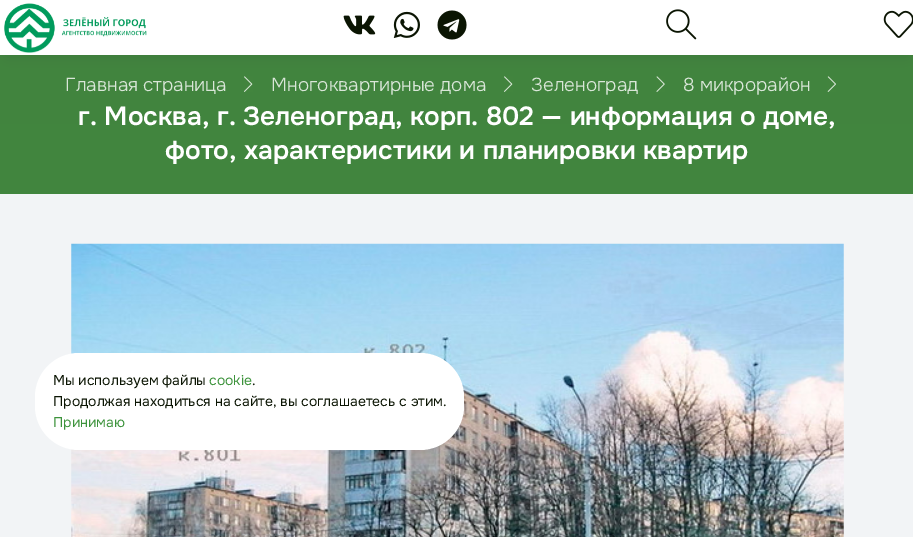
%!PS
<< /PageSize [913 537] /PageUsesTransparency true >> setpagedevice
/alpha { dup .setfillconstantalpha .setstrokeconstantalpha } def
/roundrect { 5 dict begin { /r /h /w /y /x } { exch def } forall
  x r add y moveto x w add y 2 copy h add r arct x w add y h add x 1 index r arct
  x y h add x y r arct x y 2 copy exch w add exch r arct closepath end } def
/shadow { 12 dict begin { /a /b /q /h /w /y /x } { exch def } forall gsave /was 0 def
  9 -2 -9 { dup b mul 4 div /e exch def 1 sub .425 mul 2.718 exch exp 1 add a .99 .min exch div /now exch def
    1 1 now sub 1 was sub div sub alpha /was now def
    w h .min e 2 mul add 0 gt { x e sub y e sub w e 2 mul add h e 2 mul add
      q e add b .6 mul add w h .min 2 div e add .min 0 .max roundrect fill } if } for grestore end } def
/picture { 5 dict begin { /h /w /y /x /name } { exch def } forall
  gsave x y translate w h scale
  w h 8 [w 0 0 h 0 0] name (r) file false 3 colorimage grestore end } def
0 .pushpdf14devicefilter
0 537 translate 1 -1 scale
4 setmiterlimit
0.949 0.957 0.965 setrgbcolor
0 0 913 537 rectfill
gsave newpath 0 55 moveto 913 55 lineto 913 194 lineto 0 194 lineto closepath clip newpath
<< /ShadingType 2 /ColorSpace /DeviceRGB /Coords [457 55 457 194] /Extend [true true] /Function << /FunctionType 2 /Domain [0 1] /C0 [0.259 0.518 0.243] /C1 [0.255 0.525 0.243] /N 1 >> >> shfill grestore
0 setgray
8 14 898 40 0 6 0.1 shadow
1 setgray
0 0 913 55 rectfill
(img1.rgb) 4 3 143 50 picture
(img2.rgb) 343 15 33 20 picture
(img3.rgb) 393 11 27 27 picture
(img4.rgb) 437 10 30 30 picture
(img5.rgb) 666 9 31 31 picture
(img6.rgb) 883 10 30 28 picture
/Onest-Light [18.75 0 0 -18.75 0 0] selectfont
0.851 0.902 0.847 setrgbcolor
65 91 moveto (Главная страница) show
(img7.rgb) 244 76 9 16 picture
271 91 moveto (Многоквартирные дома) show
(img7.rgb) 504 76 9 16 picture
531 91 moveto (Зеленоград) show
(img8.rgb) 656 76 9 16 picture
683 91 moveto (8 микрорайон) show
(img9.rgb) 827 76 9 16 picture
/Onest-SemiBold [26.25 0 0 -26.25 0 0] selectfont
1 setgray
78 125 moveto (г. Москва, г. Зеленоград, корп. 802 — информация о доме,) show
165 159 moveto (фото, характеристики и планировки квартир) show
(img10.rgb) 71 243 773 294 picture
35 353 429 97 44 roundrect fill
/Onest-Regular [14 0 0 -14 0 0] selectfont
0.043 0.082 0.012 setrgbcolor
53 385 moveto (Мы используем файлы) show
0.239 0.576 0.235 setrgbcolor
209 385 moveto (cookie) show
0.043 0.082 0.012 setrgbcolor
252 385 moveto (.) show
53 406 moveto (Продолжая находиться на сайте, вы соглашаетесь с этим.) show
0.239 0.576 0.235 setrgbcolor
53 427 moveto (Принимаю) show
.poppdf14devicefilter showpage
